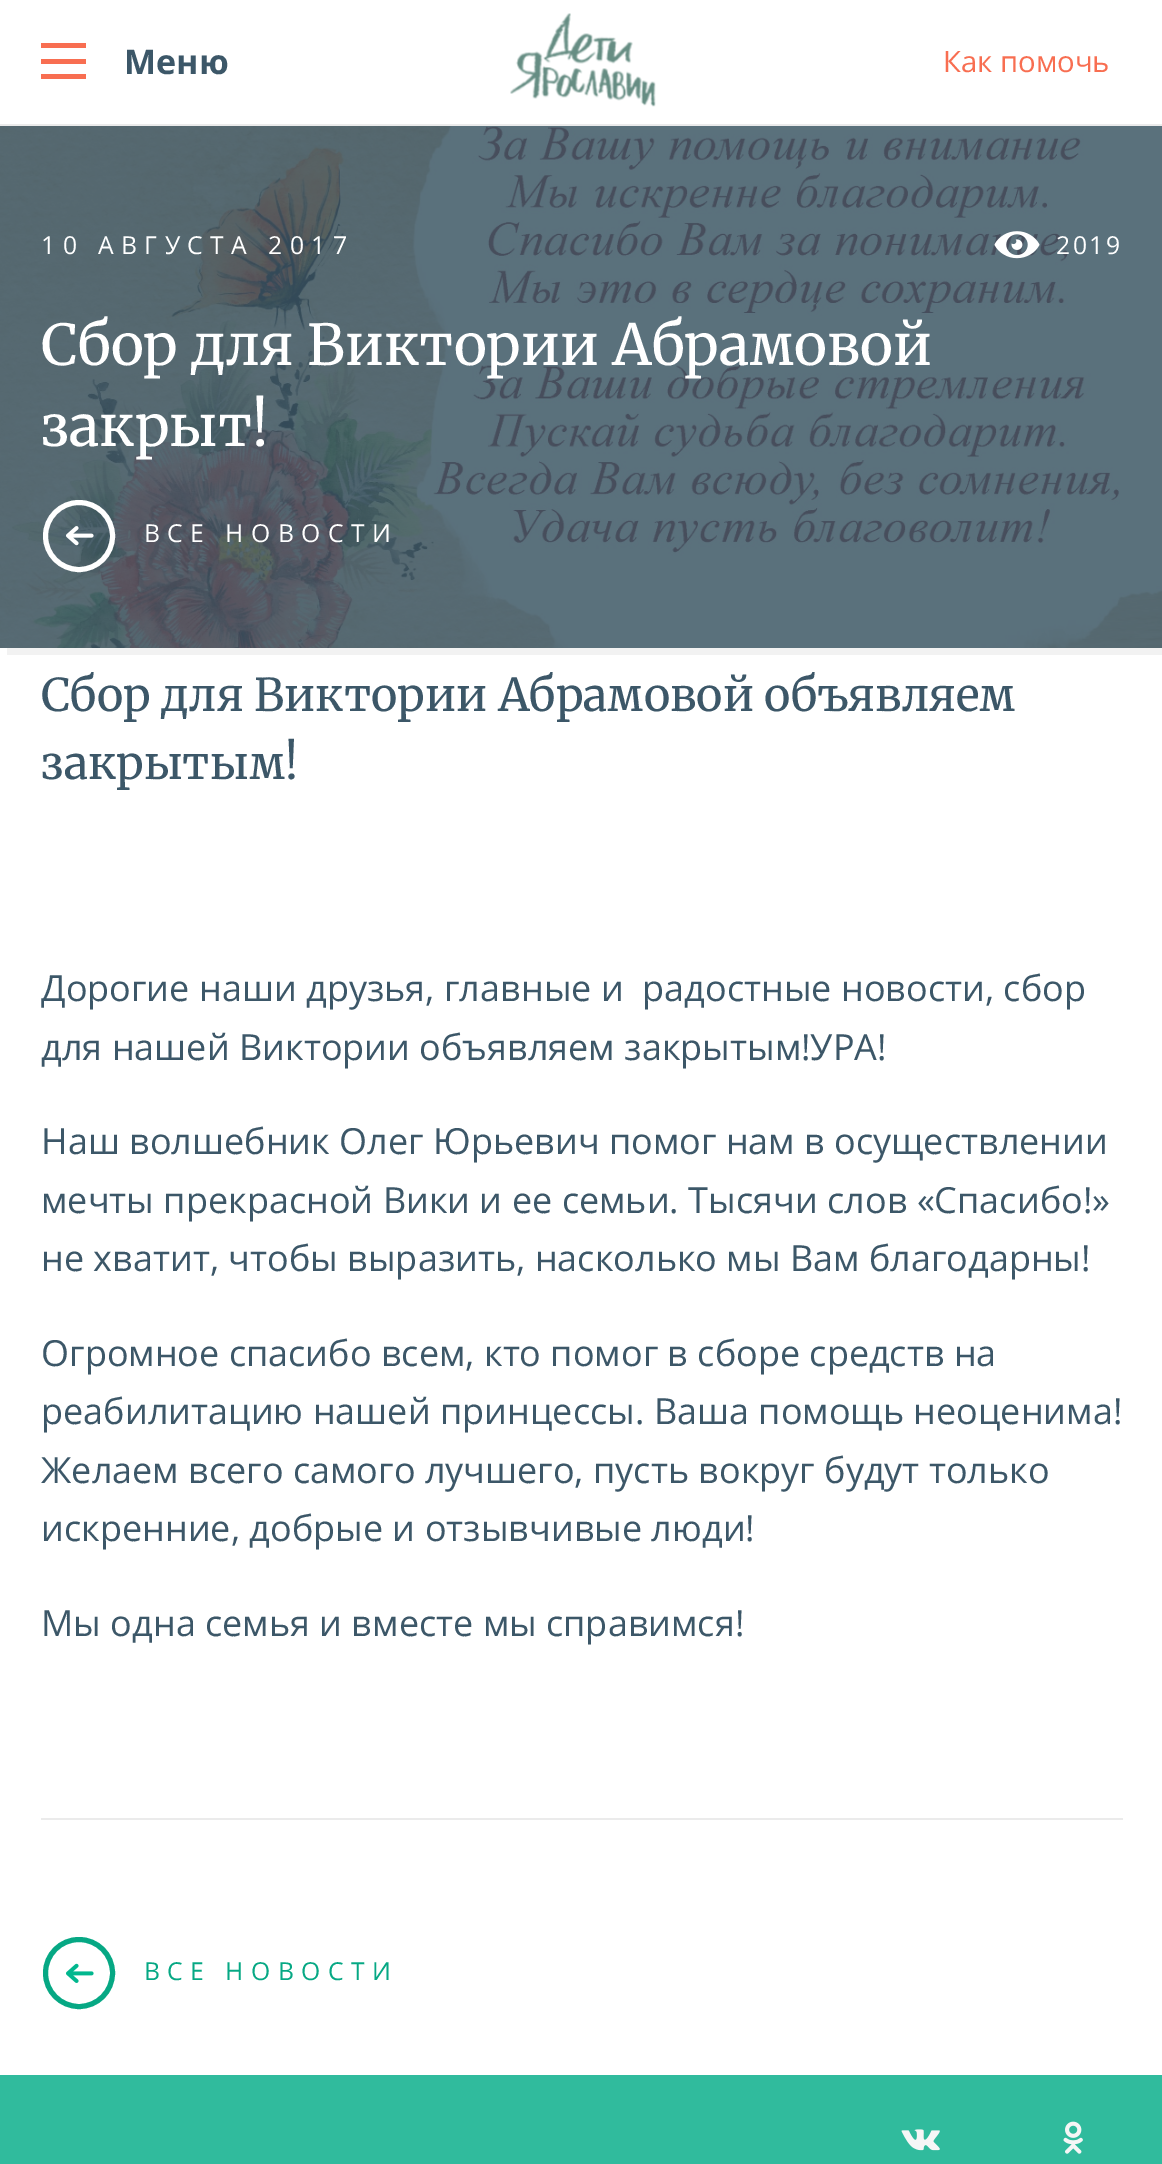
%!PS
<< /PageSize [1162 2164] >> setpagedevice
/picture { 5 dict begin { /h /w /y /x /name } { exch def } forall
  gsave x y translate w h scale
  w h 8 [w 0 0 h 0 0] name (r) file false 3 colorimage grestore end } def
0 2164 translate 1 -1 scale
4 setmiterlimit
1 setgray
0 0 1162 2164 rectfill
0.922 setgray
0 124 1162 2 rectfill
0.973 0.431 0.318 setrgbcolor
41 59 45 5 rectfill
41 43 45 5 rectfill
41 74 45 5 rectfill
/OpenSans-Bold [34 0 0 -34 0 0] selectfont
0.235 0.341 0.408 setrgbcolor
124 74 moveto (Меню) show
(img1.rgb) 510 13 146 94 picture
/OpenSans-Regular [29.25 0 0 -29.25 0 0] selectfont
0.973 0.431 0.318 setrgbcolor
943 72 moveto (Как помочь) show
0.949 setgray
newpath 7 648 moveto 7 655 lineto 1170 655 lineto 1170 133 lineto 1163 133 lineto 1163 648 lineto closepath fill
(img2.rgb) 0 126 1162 522 picture
/OpenSans-Regular [24.75 0 0 -24.75 0 0] selectfont
1 setgray
41 254 moveto 7.4 0 (10 АВГУСТА 2017) ashow
(img3.rgb) 994 231 46 28 picture
1056 254 moveto 2.5 0 (2019) ashow
/Merriweather-Regular [56.25 0 0 -56.25 0 0] selectfont
41 365 moveto (Cбор для Виктории Абрамовой) show
41 446 moveto (закрыт!) show
5 setlinewidth
newpath 79 536 33.5 0 360 arc closepath stroke
(img4.rgb) 66 526 28 20 picture
/OpenSans-Regular [24.75 0 0 -24.75 0 0] selectfont
144 542 moveto 7.4 0 (ВСЕ НОВОСТИ) ashow
/Merriweather-Regular [45 0 0 -45 0 0] selectfont
0.235 0.341 0.408 setrgbcolor
41 711 moveto (Сбор для Виктории Абрамовой объявляем) show
41 779 moveto (закрытым!) show
/OpenSans-Regular [36 0 0 -36 0 0] selectfont
41 1001 moveto (Дорогие наши друзья, главные и  радостные новости, сбор) show
41 1060 moveto (для нашей Виктории объявляем закрытым!УРА!) show
41 1154 moveto (Наш волшебник Олег Юрьевич помог нам в осуществлении) show
41 1213 moveto (мечты прекрасной Вики и ее семьи. Тысячи слов «Спасибо!») show
41 1271 moveto (не хватит, чтобы выразить, насколько мы Вам благодарны!) show
41 1366 moveto (Огромное спасибо всем, кто помог в сборе средств на) show
41 1424 moveto (реабилитацию нашей принцессы. Ваша помощь неоценима!) show
41 1483 moveto (Желаем всего самого лучшего, пусть вокруг будут только) show
41 1541 moveto (искренние, добрые и отзывчивые люди!) show
41 1636 moveto (Мы одна семья и вместе мы справимся!) show
0.922 setgray
41 1818 1082 2 rectfill
0.024 0.659 0.518 setrgbcolor
newpath 79 1973 33.5 0 360 arc closepath stroke
(img5.rgb) 66 1963 28 20 picture
/OpenSans-Regular [24.75 0 0 -24.75 0 0] selectfont
144 1980 moveto 7.4 0 (ВСЕ НОВОСТИ) ashow
0.188 0.733 0.616 setrgbcolor
0 2075 1162 89 rectfill
(img6.rgb) 901 2129 39 22 picture
(img7.rgb) 1063 2121 20 33 picture
showpage
